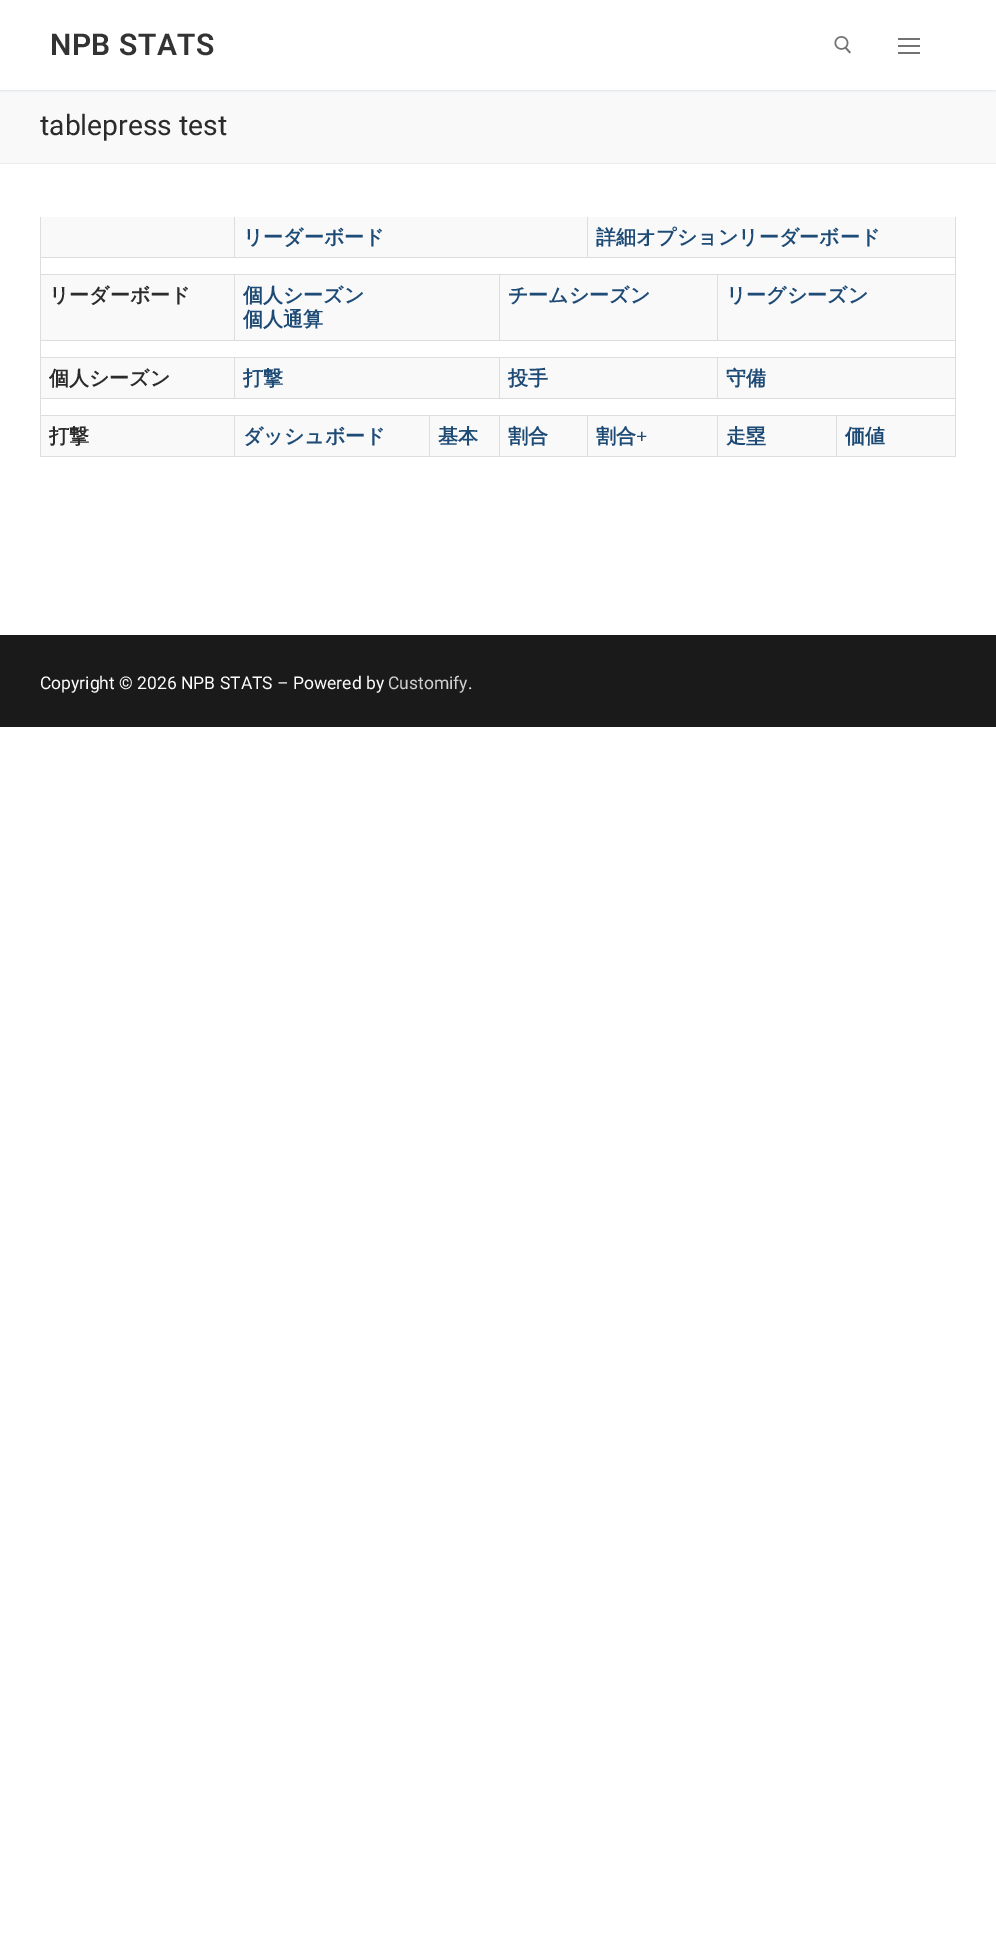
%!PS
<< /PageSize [996 1939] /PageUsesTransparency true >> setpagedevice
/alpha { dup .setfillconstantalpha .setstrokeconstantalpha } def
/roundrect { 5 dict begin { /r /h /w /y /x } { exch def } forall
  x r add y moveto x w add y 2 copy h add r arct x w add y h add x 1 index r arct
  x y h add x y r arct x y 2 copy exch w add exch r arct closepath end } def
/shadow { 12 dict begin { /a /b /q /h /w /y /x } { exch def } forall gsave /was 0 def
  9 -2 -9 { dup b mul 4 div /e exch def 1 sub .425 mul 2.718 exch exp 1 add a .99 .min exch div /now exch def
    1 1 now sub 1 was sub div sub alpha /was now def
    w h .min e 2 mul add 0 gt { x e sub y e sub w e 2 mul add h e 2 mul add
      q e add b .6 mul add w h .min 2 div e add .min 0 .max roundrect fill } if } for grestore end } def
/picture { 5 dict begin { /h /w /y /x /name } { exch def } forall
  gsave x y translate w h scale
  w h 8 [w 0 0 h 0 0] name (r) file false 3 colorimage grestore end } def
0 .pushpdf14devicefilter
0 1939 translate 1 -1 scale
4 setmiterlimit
1 setgray
0 0 996 1939 rectfill
0.976 setgray
0 90 996 73 rectfill
gsave
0 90 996 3 rectclip
0.882 0.898 0.918 setrgbcolor
0 1 996 90 0 1 1 shadow
grestore
/Roboto-SemiBold [30 0 0 -30 0 0] selectfont
0.2 setgray
50 55 moveto 0.5 0 (NPB STATS) ashow
(img1.rgb) 834 36 17 18 picture
0.451 setgray
898 45 22 2 rectfill
898 38 22 2 rectfill
898 52 22 2 rectfill
0.918 0.925 0.933 setrgbcolor
0 163 996 1 rectfill
/Roboto-Regular [28.25 0 0 -28.25 0 0] selectfont
0.169 setgray
40 135 moveto (tablepress test) show
0.867 setgray
40 257 916 1 rectfill
717 274 239 1 rectfill
40 340 916 1 rectfill
717 357 239 1 rectfill
40 398 916 1 rectfill
836 415 120 1 rectfill
955 415 1 42 rectfill
955 398 1 18 rectfill
955 357 1 42 rectfill
955 340 1 18 rectfill
955 274 1 67 rectfill
955 217 1 58 rectfill
717 274 1 67 rectfill
499 274 219 1 rectfill
499 274 1 67 rectfill
234 274 266 1 rectfill
234 274 1 67 rectfill
40 274 195 1 rectfill
717 357 1 42 rectfill
499 357 219 1 rectfill
499 357 1 42 rectfill
234 357 266 1 rectfill
234 357 1 42 rectfill
40 357 195 1 rectfill
836 456 120 1 rectfill
836 415 1 42 rectfill
717 415 120 1 rectfill
717 456 120 1 rectfill
717 415 1 42 rectfill
587 415 131 1 rectfill
587 456 131 1 rectfill
587 415 1 42 rectfill
499 415 89 1 rectfill
499 456 89 1 rectfill
499 415 1 42 rectfill
429 415 71 1 rectfill
429 456 71 1 rectfill
429 415 1 42 rectfill
234 415 196 1 rectfill
234 456 196 1 rectfill
234 415 1 42 rectfill
40 415 195 1 rectfill
40 456 195 1 rectfill
40 415 1 42 rectfill
40 398 1 18 rectfill
40 357 1 42 rectfill
40 340 1 18 rectfill
40 274 1 67 rectfill
40 217 1 58 rectfill
0.976 setgray
41 217 193 40 rectfill
235 217 352 40 rectfill
0.867 setgray
234 217 1 41 rectfill
/WenQuanYiZenHei-Bold [20 0 0 -20 0 0] selectfont
0.118 0.294 0.459 setrgbcolor
243 244 moveto (リーダーボード) show
0.976 setgray
588 217 367 40 rectfill
0.867 setgray
587 217 1 41 rectfill
0.118 0.294 0.459 setrgbcolor
596 244 moveto (詳細オプションリーダーボード) show
0.976 setgray
41 275 193 65 rectfill
0.169 setgray
49 302 moveto (リーダーボード) show
0.976 setgray
235 275 264 65 rectfill
0.118 0.294 0.459 setrgbcolor
243 302 moveto (個人シーズン) show
243 326 moveto (個人通算) show
0.976 setgray
500 275 217 65 rectfill
0.118 0.294 0.459 setrgbcolor
508 302 moveto (チームシーズン) show
0.976 setgray
718 275 237 65 rectfill
0.118 0.294 0.459 setrgbcolor
726 302 moveto (リーグシーズン) show
0.976 setgray
41 358 193 40 rectfill
0.169 setgray
49 385 moveto (個人シーズン) show
0.976 setgray
235 358 264 40 rectfill
0.118 0.294 0.459 setrgbcolor
243 385 moveto (打撃) show
0.976 setgray
500 358 217 40 rectfill
0.118 0.294 0.459 setrgbcolor
508 385 moveto (投手) show
0.976 setgray
718 358 237 40 rectfill
0.118 0.294 0.459 setrgbcolor
726 385 moveto (守備) show
0.976 setgray
41 416 193 40 rectfill
0.169 setgray
49 443 moveto (打撃) show
0.976 setgray
235 416 194 40 rectfill
0.118 0.294 0.459 setrgbcolor
243 443 moveto (ダッシュボード) show
0.976 setgray
430 416 69 40 rectfill
0.118 0.294 0.459 setrgbcolor
438 443 moveto (基本) show
0.976 setgray
500 416 87 40 rectfill
0.118 0.294 0.459 setrgbcolor
508 443 moveto (割合) show
0.976 setgray
588 416 129 40 rectfill
0.118 0.294 0.459 setrgbcolor
596 443 moveto (割合) show
/LiberationSerif-Bold [20 0 0 -20 0 0] selectfont
636 443 moveto (+) show
0.976 setgray
718 416 118 40 rectfill
/WenQuanYiZenHei-Bold [20 0 0 -20 0 0] selectfont
0.118 0.294 0.459 setrgbcolor
726 443 moveto (走塁) show
0.976 setgray
837 416 118 40 rectfill
0.118 0.294 0.459 setrgbcolor
845 443 moveto (価値) show
0.102 setgray
0 635 996 92 rectfill
/Roboto-Regular [17.5 0 0 -17.5 0 0] selectfont
0.992 setgray
40 689 moveto (Copyright © 2026 NPB STATS – Powered by) show
0.812 setgray
388 689 moveto (Customify) show
0.992 setgray
468 689 moveto (.) show
.poppdf14devicefilter showpage
